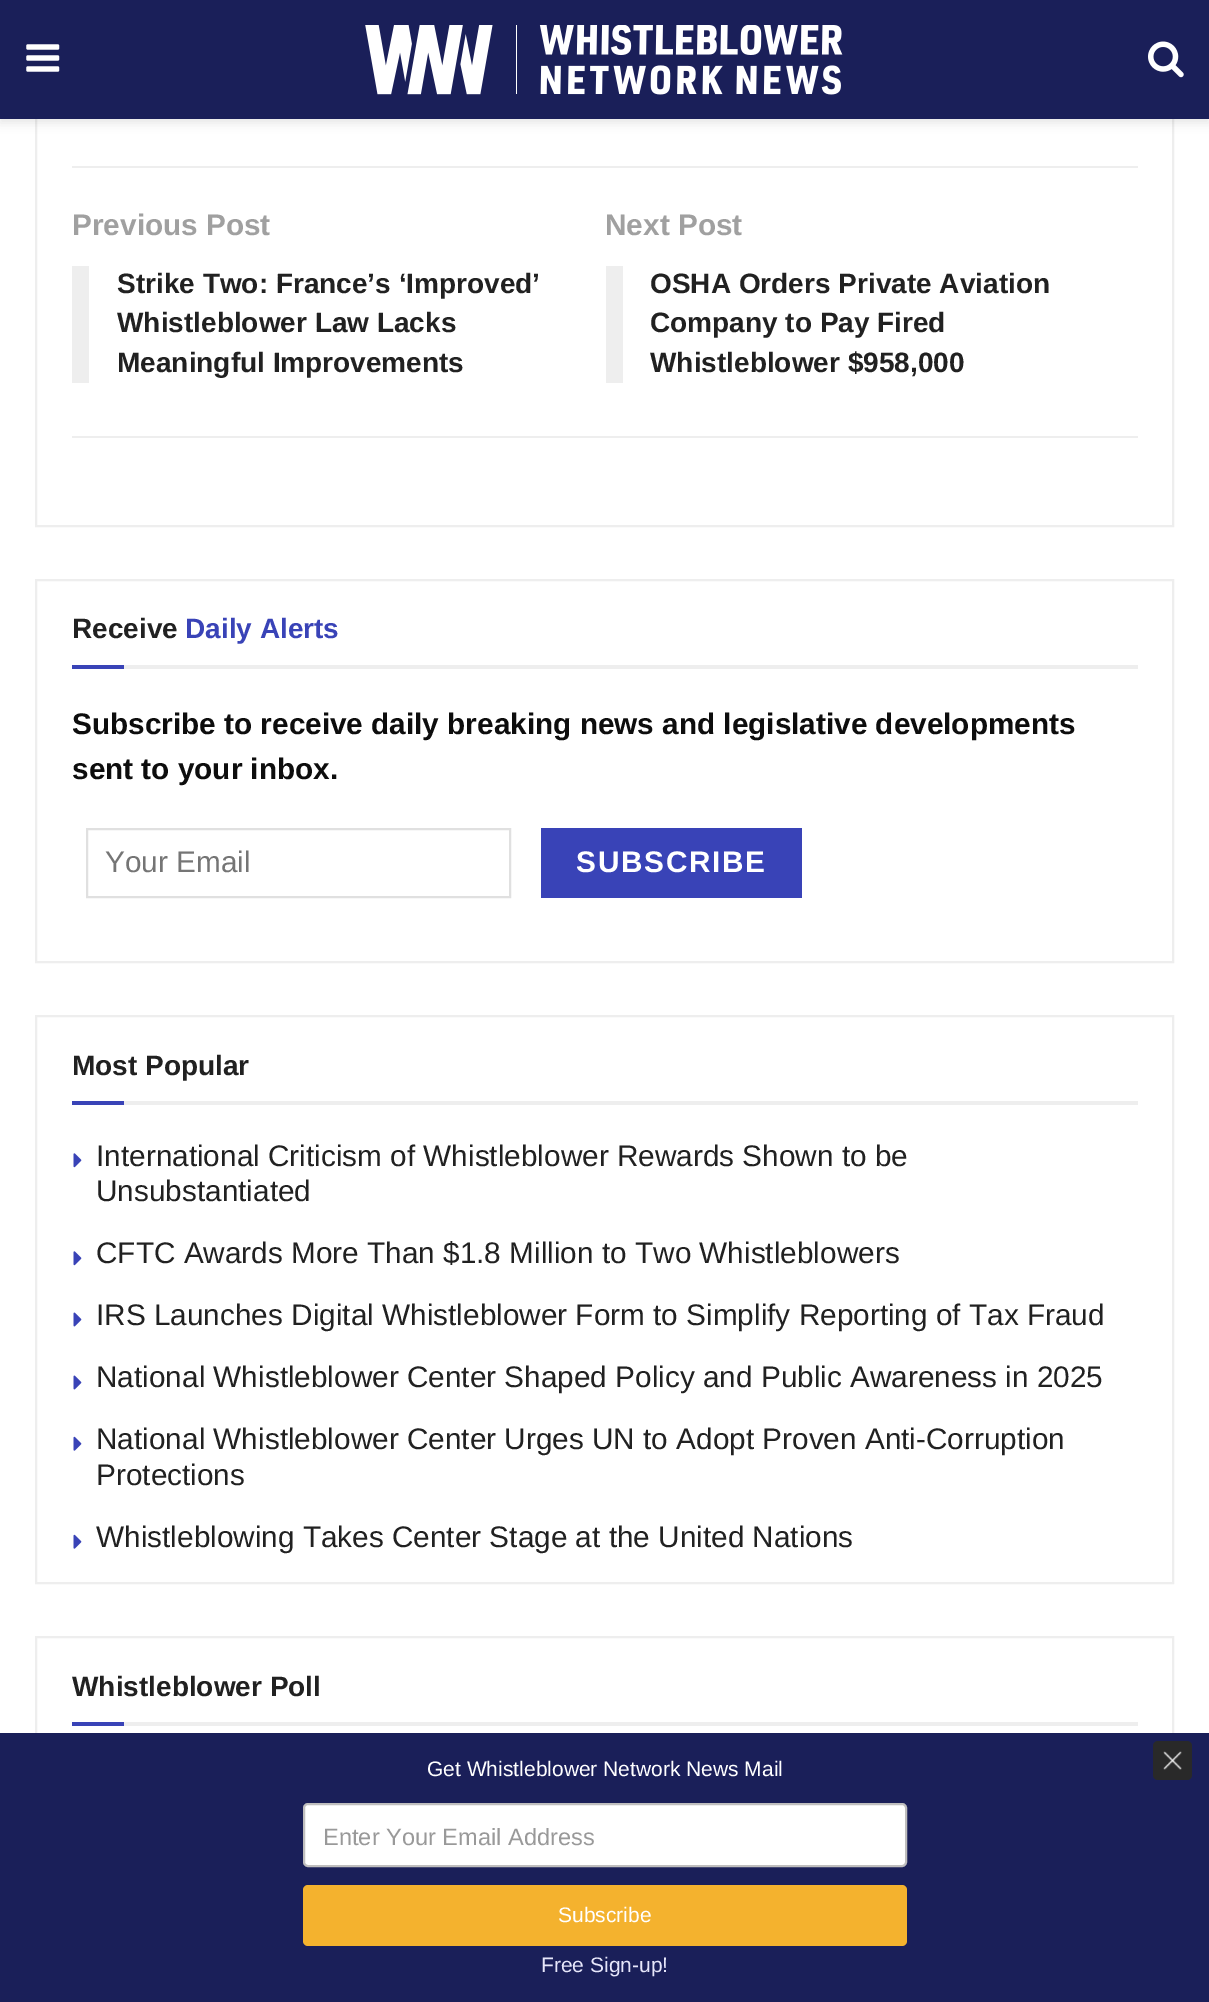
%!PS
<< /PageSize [1209 2002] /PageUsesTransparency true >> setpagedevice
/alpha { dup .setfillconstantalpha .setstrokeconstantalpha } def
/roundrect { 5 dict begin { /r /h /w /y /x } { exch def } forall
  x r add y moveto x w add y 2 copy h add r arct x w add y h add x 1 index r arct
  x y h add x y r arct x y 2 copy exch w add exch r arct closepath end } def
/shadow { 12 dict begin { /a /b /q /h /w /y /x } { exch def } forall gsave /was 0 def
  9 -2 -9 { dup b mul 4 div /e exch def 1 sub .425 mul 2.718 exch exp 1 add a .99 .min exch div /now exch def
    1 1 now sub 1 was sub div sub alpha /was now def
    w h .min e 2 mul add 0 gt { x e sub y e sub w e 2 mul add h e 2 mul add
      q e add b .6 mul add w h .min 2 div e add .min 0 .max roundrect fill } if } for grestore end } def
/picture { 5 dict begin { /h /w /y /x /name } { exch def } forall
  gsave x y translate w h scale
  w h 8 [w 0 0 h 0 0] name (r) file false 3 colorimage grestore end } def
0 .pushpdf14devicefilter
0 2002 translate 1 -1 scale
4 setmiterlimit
1 setgray
0 0 1209 2002 rectfill
0.933 setgray
2 setlinewidth
36 -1 1137 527 rectstroke
0 setgray
0 4 1209 119 0 5 0.1 shadow
0.102 0.122 0.349 setrgbcolor
0 0 1209 119 rectfill
(img1.rgb) 26 44 34 28 picture
(img2.rgb) 365 25 478 70 picture
(img3.rgb) 1148 41 36 37 picture
0.933 setgray
72 166 1066 2 rectfill
72 436 1066 2 rectfill
/LiberationSans-Bold [29.75 0 0 -29.75 0 0] selectfont
0.627 setgray
72 235 moveto (Previous Post) show
0.933 setgray
72 266 17 117 rectfill
/LiberationSans-Bold [28 0 0 -28 0 0] selectfont
0.129 setgray
117 293 moveto (Strike Two: France’s ‘Improved’) show
117 332 moveto (Whistleblower Law Lacks) show
117 372 moveto (Meaningful Improvements) show
/LiberationSans-Bold [29.75 0 0 -29.75 0 0] selectfont
0.627 setgray
605 235 moveto (Next Post) show
0.933 setgray
606 266 17 117 rectfill
/LiberationSans-Bold [28 0 0 -28 0 0] selectfont
0.129 setgray
650 293 moveto (OSHA Orders Private Aviation) show
650 332 moveto (Company to Pay Fired) show
650 372 moveto (Whistleblower $958,000) show
0.933 setgray
36 580 1137 382 rectstroke
124 665 1014 4 rectfill
0.129 setgray
72 638 moveto (Receive) show
0.224 0.263 0.718 setrgbcolor
185 638 moveto (Daily Alerts) show
72 665 52 4 rectfill
/LiberationSans-Bold [29.75 0 0 -29.75 0 0] selectfont
0.051 setgray
72 734 moveto (Subscribe to receive daily breaking news and legislative developments) show
72 779 moveto (sent to your inbox.) show
0.878 setgray
87 829 423 68 rectstroke
/LiberationSans-Regular [29.75 0 0 -29.75 0 0] selectfont
0.459 setgray
105 872 moveto (Your Email) show
0.224 0.263 0.718 setrgbcolor
541 828 261 70 rectfill
/LiberationSans-Bold [29.75 0 0 -29.75 0 0] selectfont
1 setgray
576 872 moveto 1.75 0 (SUBSCRIBE) ashow
0.933 setgray
36 1016 1137 567 rectstroke
124 1101 1014 4 rectfill
/LiberationSans-Bold [28 0 0 -28 0 0] selectfont
0.129 setgray
72 1075 moveto (Most Popular) show
0.224 0.263 0.718 setrgbcolor
72 1101 52 4 rectfill
(img4.rgb) 73 1153 9 15 picture
/LiberationSans-Regular [29.75 0 0 -29.75 0 0] selectfont
0.129 setgray
96 1166 moveto (International Criticism of Whistleblower Rewards Shown to be) show
96 1201 moveto (Unsubstantiated) show
(img4.rgb) 73 1251 9 15 picture
96 1263 moveto (CFTC Awards More Than $1.8 Million to Two Whistleblowers) show
(img5.rgb) 73 1312 9 15 picture
96 1325 moveto (IRS Launches Digital Whistleblower Form to Simplify Reporting of Tax Fraud) show
(img5.rgb) 73 1375 9 15 picture
96 1387 moveto (National Whistleblower Center Shaped Policy and Public Awareness in 2025) show
(img6.rgb) 73 1436 9 15 picture
96 1449 moveto (National Whistleblower Center Urges UN to Adopt Proven Anti-Corruption) show
96 1485 moveto (Protections) show
(img6.rgb) 73 1534 9 15 picture
96 1547 moveto (Whistleblowing Takes Center Stage at the United Nations) show
0.933 setgray
36 1637 1137 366 rectstroke
124 1722 1014 4 rectfill
/LiberationSans-Bold [28 0 0 -28 0 0] selectfont
0.129 setgray
72 1696 moveto (Whistleblower Poll) show
0.224 0.263 0.718 setrgbcolor
72 1722 52 4 rectfill
0.102 0.122 0.349 setrgbcolor
0 1733 1209 269 rectfill
/LiberationSans-Regular [21 0 0 -21 0 0] selectfont
1 setgray
427 1776 moveto (Get Whistleblower Network News Mail) show
304 1804 602 62 4 roundrect gsave fill grestore
0.749 0.745 0.745 setrgbcolor
stroke
/LiberationSans-Regular [23.6 0 0 -23.6 0 0] selectfont
0.6 setgray
323 1845 moveto (Enter Your Email Address) show
0.957 0.698 0.18 setrgbcolor
303 1885 604 61 5 roundrect fill
/LiberationSans-Regular [21 0 0 -21 0 0] selectfont
1 setgray
558 1922 moveto (Subscribe) show
0.902 0.902 0.98 setrgbcolor
541 1972 moveto (Free Sign-up!) show
0.161 setgray
1153 1741 39 39 5 roundrect fill
(img7.rgb) 1163 1751 19 19 picture
.poppdf14devicefilter showpage
